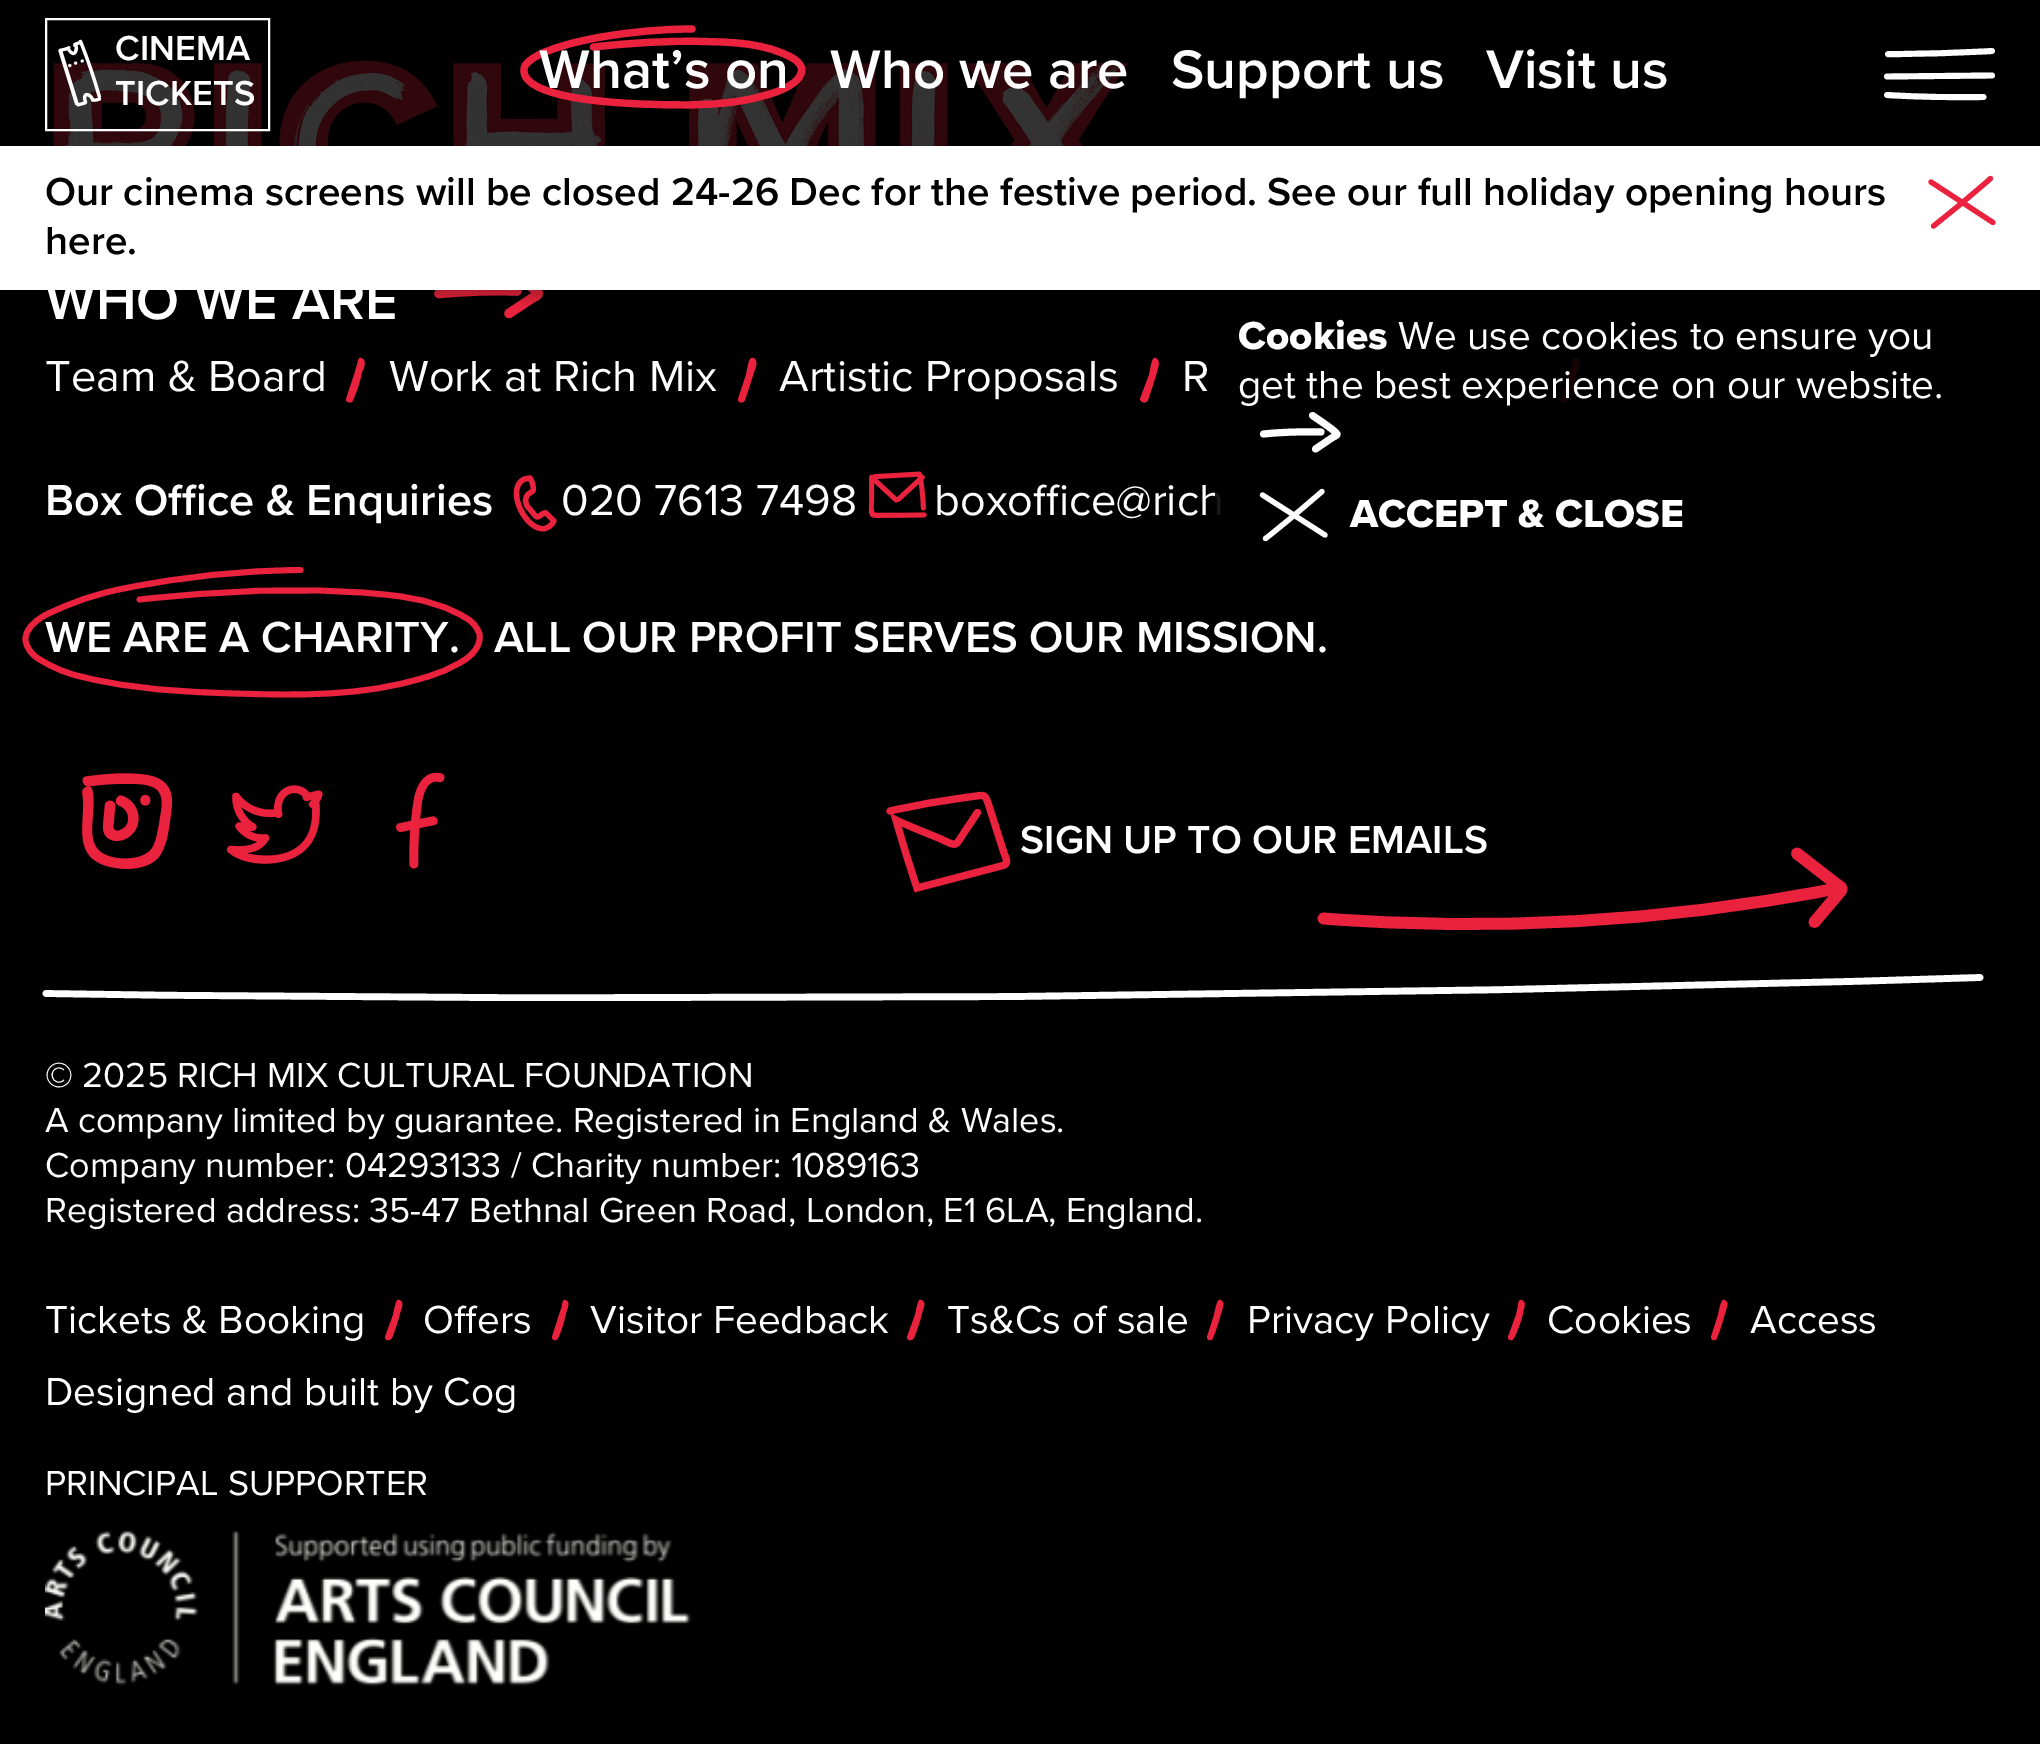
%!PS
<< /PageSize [2040 1744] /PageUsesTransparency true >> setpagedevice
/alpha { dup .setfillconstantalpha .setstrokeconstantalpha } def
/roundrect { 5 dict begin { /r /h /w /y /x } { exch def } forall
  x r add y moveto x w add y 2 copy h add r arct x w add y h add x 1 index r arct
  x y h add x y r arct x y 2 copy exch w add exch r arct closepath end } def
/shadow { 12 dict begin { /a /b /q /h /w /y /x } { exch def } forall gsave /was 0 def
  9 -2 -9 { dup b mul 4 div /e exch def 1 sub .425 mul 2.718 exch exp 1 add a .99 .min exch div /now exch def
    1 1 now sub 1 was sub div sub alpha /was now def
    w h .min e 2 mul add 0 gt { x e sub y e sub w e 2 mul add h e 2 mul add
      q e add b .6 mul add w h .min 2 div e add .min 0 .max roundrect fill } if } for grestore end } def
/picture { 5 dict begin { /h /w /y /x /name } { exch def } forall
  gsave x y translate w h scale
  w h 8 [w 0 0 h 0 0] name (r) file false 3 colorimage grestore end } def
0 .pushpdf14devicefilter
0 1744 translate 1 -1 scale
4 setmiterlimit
0 setgray
0 0 2040 1744 rectfill
(img2.rgb) 53 56 1075 90 picture
0.8 alpha
53 56 1075 90 rectfill
1 alpha
1 setgray
2 setlinewidth
46 19 223 111 rectstroke
(img1.rgb) 58 39 44 68 picture
/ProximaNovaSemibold-Regular [36 0 0 -36 0 0] selectfont
115 60 moveto (CINEMA) show
115 105 moveto (TICKETS) show
0.922 0.133 0.239 setrgbcolor
7.2 setlinewidth
1 setlinecap
newpath 692 29 moveto 660.5 29 629.5 32 598.5 37.5 curveto 579 41 560 45.5 541.5 53.5 curveto 536 56.5 529.5 59.5 525.5 65 curveto 523.5 68 523.5 71.5 525 75.5 curveto 535.5 99.5 621 103 640 104 curveto 673 105 706.5 106.5 739.5 101 curveto 752 99 755.5 98 768 94.5 curveto 778 92 804 82.5 801.5 68 curveto 800.5 63.5 796 60 792.5 58 curveto 765.5 43 733 42 703 41.5 curveto 666.5 40.5 630 43 593.5 47 curveto stroke
/ProximaNovaSemibold-Regular [56.25 0 0 -56.25 0 0] selectfont
1 setgray
539 88 moveto (What’s on) show
830 88 moveto (Who we are) show
1171 88 moveto (Support us) show
1486 88 moveto (Visit us) show
5.9 setlinewidth
newpath 1888 54 moveto 1923 54 1957.5 53 1992 51 curveto stroke
newpath 1887 95 moveto 1919 97 1951.5 97.5 1983.5 97 curveto stroke
newpath 1887 76.5 moveto 1992 75.5 lineto stroke
0.922 0.133 0.239 setrgbcolor
9.5 setlinewidth
newpath 505 268.5 moveto 533.5 288.5 lineto 541.5 295 538.5 294 530 299.5 curveto 509 313.5 lineto stroke
newpath 439 293.5 moveto 465 291 491 290 517 291 curveto stroke
0 setgray
0 153 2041 144 0 7 0.29 shadow
1 setgray
0 146 2040 144 rectfill
/ProximaNovaSemibold-Regular [40.5 0 0 -40.5 0 0] selectfont
0 setgray
45 205 moveto (Our cinema screens will be closed 24-26 Dec for the festive period. See our full holiday opening hours) show
45 254 moveto (here.) show
0.922 0.133 0.239 setrgbcolor
5.2 setlinewidth
newpath 1933.5 226 moveto 1953 210.5 1972 195 1990.5 178.5 curveto stroke
newpath 1931 182 moveto 1993 222.5 lineto stroke
newpath 1568 400 moveto 1572 391 1575 382 1577 372 curveto 1578 370 1582 362 1578 359 curveto 1573 355 1573 362 1572 365 curveto 1569 375 lineto 1561 399 lineto 1561 403 1567 404 1568 400 curveto closepath fill
/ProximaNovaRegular-Regular [45 0 0 -45 0 0] selectfont
1 setgray
934 515 moveto (boxoffice@rich) show
0.9 alpha
0 setgray
1215 357 365 158 rectfill
/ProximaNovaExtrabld-Regular [40.5 0 0 -40.5 0 0] selectfont
1 alpha
1 setgray
1238 349 moveto (Cookies) show
/ProximaNovaRegular-Regular [40.5 0 0 -40.5 0 0] selectfont
1398 349 moveto (We use cookies to ensure you) show
1238 398 moveto (get the best experience on our website.) show
7 setlinewidth
newpath 1312.5 415.5 moveto 1319.5 420.5 1327 425 1333.5 430.5 curveto 1339.5 435.5 1337 434.5 1331 438.5 curveto 1315.5 449 lineto stroke
newpath 1263.5 434 moveto 1282.5 432 1302 431.5 1321 432 curveto stroke
5.2 setlinewidth
newpath 1265.5 538.5 moveto 1285 523.5 1303.5 507.5 1322 491.5 curveto stroke
newpath 1262.5 495 moveto 1325 535 lineto stroke
/ProximaNovaExtrabld-Regular [40.5 0 0 -40.5 0 0] selectfont
1350 527 moveto (ACCEPT & CLOSE) show
gsave
41 974 1944 27 rectclip
6.7 setlinewidth
1 setlinejoin
newpath 46 993.5 moveto 690.5 1003 1335 997.5 1980 977.5 curveto stroke
grestore
/ProximaNovaSemibold-Regular [56.25 0 0 -56.25 0 0] selectfont
45 319 moveto (WHO WE ARE) show
/ProximaNovaRegular-Regular [45 0 0 -45 0 0] selectfont
45 391 moveto (Team & Board) show
0.922 0.133 0.239 setrgbcolor
newpath 353 400 moveto 357 391 360 382 362 372 curveto 363 370 367 362 363 359 curveto 358 355 358 362 357 365 curveto 354 375 lineto 346 399 lineto 346 403 352 404 353 400 curveto closepath fill
1 setgray
389 391 moveto (Work at Rich Mix) show
0.922 0.133 0.239 setrgbcolor
newpath 745 400 moveto 748 391 751 382 754 372 curveto 755 370 758 362 755 359 curveto 750 355 749 362 748 365 curveto 746 375 lineto 738 399 lineto 738 403 743 404 745 400 curveto closepath fill
1 setgray
779 391 moveto (Artistic Proposals) show
0.922 0.133 0.239 setrgbcolor
newpath 1148 400 moveto 1151 391 1154 382 1157 372 curveto 1157 370 1161 362 1157 359 curveto 1153 355 1152 362 1151 365 curveto 1149 375 lineto 1140 399 lineto 1141 403 1146 404 1148 400 curveto closepath fill
1 setgray
1182 391 moveto (R) show
/ProximaNovaSemibold-Regular [45 0 0 -45 0 0] selectfont
45 515 moveto (Box Office & Enquiries) show
0.922 0.133 0.239 setrgbcolor
5.3 setlinewidth
newpath 529.5 478.5 moveto 527 478 524 479 522 480.5 curveto 506.5 491.5 526.5 532 545 528.5 curveto 548.5 527.5 552 525 553.5 521.5 curveto 554 521 moveto 546 513 lineto 544.5 512.5 543 513.5 541.5 514.5 curveto 537 518.5 536.5 517.5 533 513 curveto 527.5 506.5 lineto 525 502.5 524.5 497.5 528.5 494 curveto 532 490.5 534 493 533 486 curveto 532.5 483 531.5 480.5 530 478 curveto stroke
/ProximaNovaRegular-Regular [45 0 0 -45 0 0] selectfont
1 setgray
561 515 moveto (020 7613 7498) show
(img3.rgb) 868 471 59 48 picture
/ProximaNovaSemibold-Regular [45 0 0 -45 0 0] selectfont
45 652 moveto (WE ARE A CHARITY.) show
0.922 0.133 0.239 setrgbcolor
5.9 setlinewidth
newpath 300.5 570 moveto 242 570.5 183.5 576.5 126.5 588 curveto 98 593 70.5 602.5 44.5 615.5 curveto 35 621 24.5 629.5 25.5 640.5 curveto 27 648.5 32 655 39 659 curveto 52.5 667.5 67.5 674 83 677 curveto 132.5 689.5 184 692 235 693.5 curveto 298.5 695.5 363.5 696.5 424.5 677.5 curveto 438 674 450.5 668.5 462 661.5 curveto 472 656 481.5 645.5 479.5 634 curveto 477 627 472 620.5 465 617.5 curveto 439.5 601.5 408.5 596.5 378.5 594 curveto 299 586.5 219 591 139.5 599.5 curveto stroke
1 setgray
494 652 moveto (ALL OUR PROFIT SERVES OUR MISSION.) show
(img4.rgb) 82 773 91 96 picture
(img5.rgb) 226 785 97 79 picture
(img6.rgb) 396 772 49 97 picture
0.922 0.133 0.239 setrgbcolor
11.8 setlinewidth
1 setlinejoin
newpath 1323.5 918.5 moveto 1492 931.5 1662 922 1828.5 890 curveto stroke
newpath 1814.5 922 moveto 1836.5 896 lineto 1844.5 886.5 1843 889.5 1833 881.5 curveto 1797 853.5 lineto stroke
7.1 setlinewidth
0 setlinejoin
newpath 977.5 812.5 moveto 963.5 833.5 lineto 955 846.5 957 846.5 943 840 curveto 927.5 833 911 827.5 896 820 curveto 902.5 843 909.5 865.5 917 888 curveto 1003 865.5 lineto 1009.5 863.5 1005.5 857.5 1004 853 curveto 989.5 807.5 lineto 984.5 792.5 986 795 969 797 curveto 942.5 800.5 916 805 890 811 curveto stroke
/ProximaNovaSemibold-Regular [40.5 0 0 -40.5 0 0] selectfont
1 setgray
1020 853 moveto (SIGN UP TO OUR EMAILS) show
/ProximaNovaRegular-Regular [36 0 0 -36 0 0] selectfont
45 1087 moveto (© 2025 RICH MIX CULTURAL FOUNDATION) show
45 1132 moveto (A company limited by guarantee. Registered in England & Wales.) show
45 1177 moveto (Company number: 04293133 / Charity number: 1089163) show
45 1222 moveto (Registered address: 35-47 Bethnal Green Road, London, E1 6LA, England.) show
/ProximaNovaRegular-Regular [40.5 0 0 -40.5 0 0] selectfont
45 1333 moveto (Tickets & Booking) show
0.922 0.133 0.239 setrgbcolor
newpath 392 1338 moveto 395 1330 398 1322 400 1313 curveto 401 1310 404 1303 401 1301 curveto 396 1297 396 1304 395 1306 curveto 393 1315 lineto 385 1337 lineto 385 1341 390 1341 392 1338 curveto closepath fill
1 setgray
423 1333 moveto (Offers) show
0.922 0.133 0.239 setrgbcolor
newpath 558 1338 moveto 562 1330 564 1322 566 1313 curveto 567 1310 570 1303 567 1301 curveto 563 1297 562 1304 562 1306 curveto 559 1315 lineto 552 1337 lineto 552 1341 557 1341 558 1338 curveto closepath fill
1 setgray
590 1333 moveto (Visitor Feedback) show
0.922 0.133 0.239 setrgbcolor
newpath 914 1338 moveto 917 1330 920 1322 922 1313 curveto 923 1310 926 1303 923 1301 curveto 918 1297 918 1304 917 1306 curveto 915 1315 lineto 907 1337 lineto 907 1341 912 1341 914 1338 curveto closepath fill
1 setgray
947 1333 moveto (Ts&Cs of sale) show
0.922 0.133 0.239 setrgbcolor
newpath 1213 1338 moveto 1216 1330 1219 1322 1221 1313 curveto 1222 1310 1225 1303 1222 1301 curveto 1218 1297 1217 1304 1216 1306 curveto 1214 1315 lineto 1207 1337 lineto 1207 1341 1212 1341 1213 1338 curveto closepath fill
1 setgray
1247 1333 moveto (Privacy Policy) show
0.922 0.133 0.239 setrgbcolor
newpath 1514 1338 moveto 1518 1330 1521 1322 1523 1313 curveto 1523 1310 1527 1303 1523 1301 curveto 1519 1297 1518 1304 1518 1306 curveto 1516 1315 lineto 1508 1337 lineto 1508 1341 1513 1341 1514 1338 curveto closepath fill
1 setgray
1547 1333 moveto (Cookies) show
0.922 0.133 0.239 setrgbcolor
newpath 1717 1338 moveto 1720 1330 1723 1322 1725 1313 curveto 1726 1310 1729 1303 1726 1301 curveto 1722 1297 1721 1304 1720 1306 curveto 1718 1315 lineto 1711 1337 lineto 1711 1341 1716 1341 1717 1338 curveto closepath fill
1 setgray
1750 1333 moveto (Access) show
45 1405 moveto (Designed and built by Cog) show
/ProximaNovaRegular-Regular [36 0 0 -36 0 0] selectfont
45 1495 moveto (PRINCIPAL SUPPORTER) show
(img7.rgb) 45 1529 646 157 picture
.poppdf14devicefilter showpage
